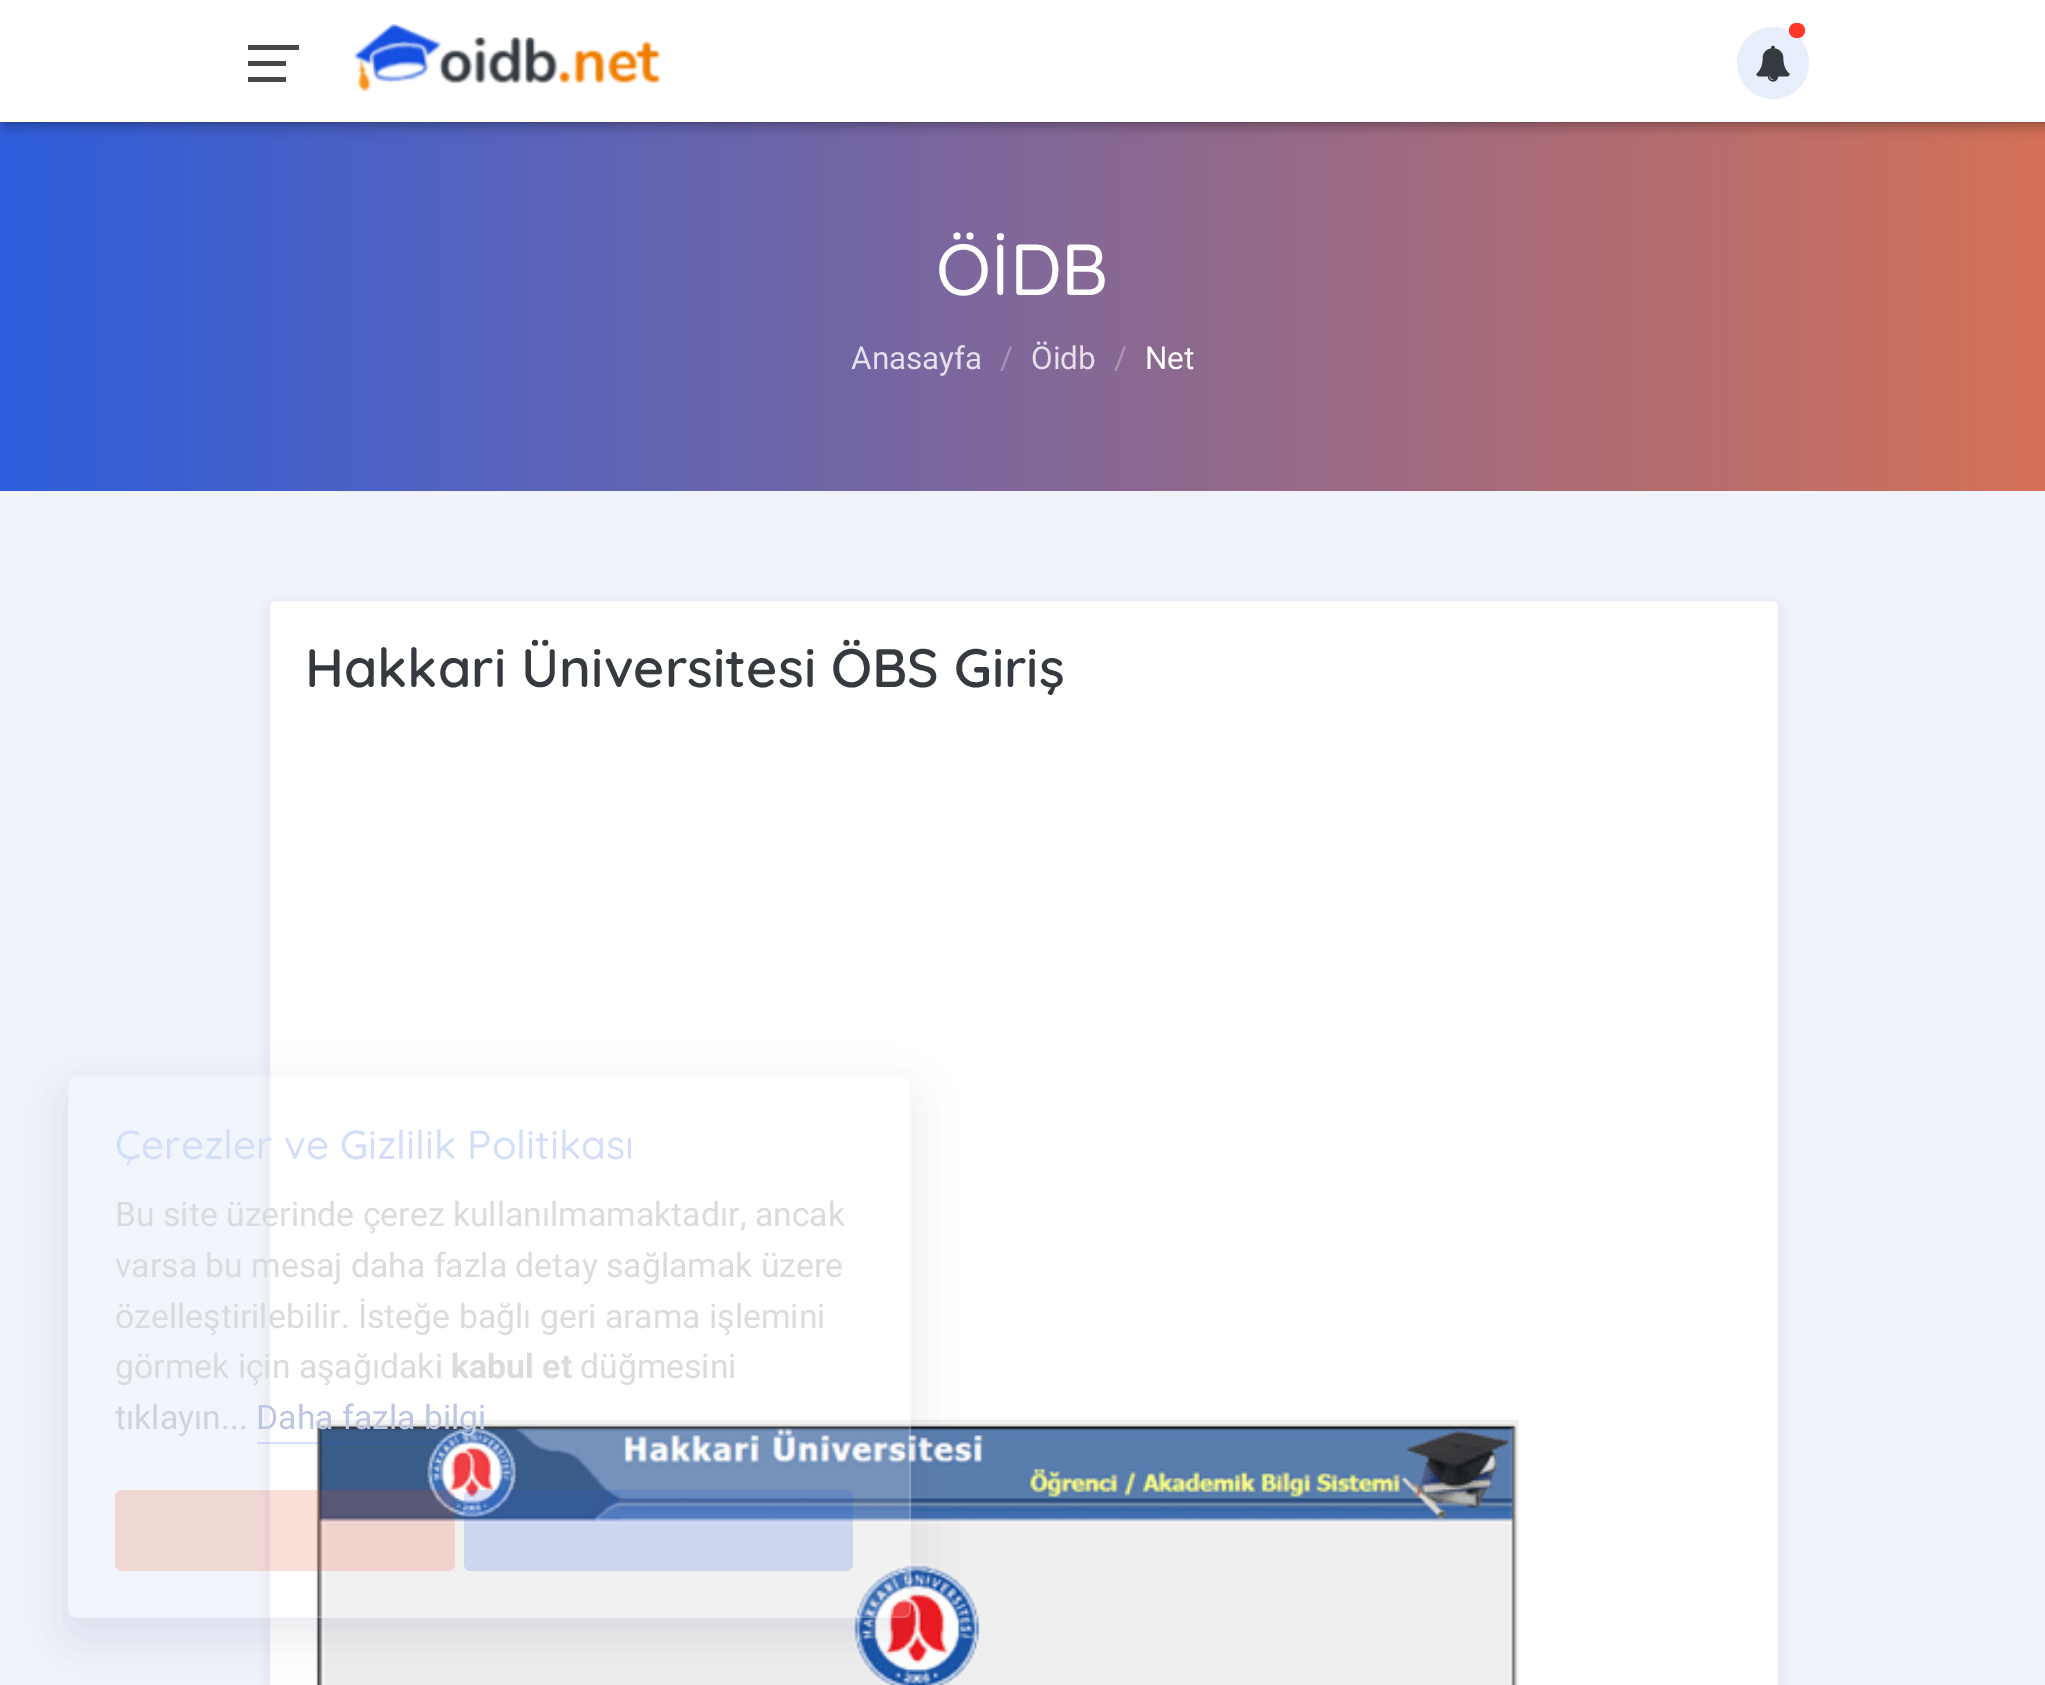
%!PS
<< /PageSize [2045 1685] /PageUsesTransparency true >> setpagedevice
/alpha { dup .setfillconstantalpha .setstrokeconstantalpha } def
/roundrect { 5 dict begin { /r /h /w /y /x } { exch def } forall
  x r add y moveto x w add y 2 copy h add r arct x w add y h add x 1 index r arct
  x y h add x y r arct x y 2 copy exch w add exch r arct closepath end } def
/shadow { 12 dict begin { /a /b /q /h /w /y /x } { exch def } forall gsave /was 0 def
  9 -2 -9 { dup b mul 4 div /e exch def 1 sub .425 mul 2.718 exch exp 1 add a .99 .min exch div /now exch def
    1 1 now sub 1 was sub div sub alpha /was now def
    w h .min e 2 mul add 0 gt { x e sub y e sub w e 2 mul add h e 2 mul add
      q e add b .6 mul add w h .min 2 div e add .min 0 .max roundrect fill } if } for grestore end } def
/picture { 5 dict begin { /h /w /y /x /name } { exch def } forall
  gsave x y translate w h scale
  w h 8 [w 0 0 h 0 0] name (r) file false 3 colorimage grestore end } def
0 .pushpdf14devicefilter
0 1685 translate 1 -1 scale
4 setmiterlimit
0.941 0.953 0.98 setrgbcolor
0 0 2045 1685 rectfill
gsave newpath 0 122 moveto 2045 122 lineto 2045 491 lineto 0 491 lineto closepath clip newpath
<< /ShadingType 2 /ColorSpace /DeviceRGB /Coords [0 306 2045 306] /Extend [true true] /Function << /FunctionType 2 /Domain [0 1] /C0 [0.18 0.369 0.863] /C1 [0.831 0.443 0.341] /N 1 >> >> shfill grestore
0 setgray
5 7 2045 121 0 5.5 0.24 shadow
0 0 2045 122 0 1 0.3 shadow
1 setgray
0 0 2045 122 rectfill
0.275 0.282 0.29 setrgbcolor
248 61 38 5 rectfill
248 45 51 5 rectfill
248 77 38 5 rectfill
(img1.rgb) 354 24 308 69 picture
0.91 0.933 0.988 setrgbcolor
newpath 1773 63 36 0 360 arc closepath fill
1 0.22 0.169 setrgbcolor
1789 23 16 15 7.5 roundrect fill
(img2.rgb) 1756 45 34 37 picture
/Quicksand-Medium [72 0 0 -72 0 0] selectfont
1 setgray
936 295 moveto (ÖİDB) show
/Roboto-Regular [31.5 0 0 -31.5 0 0] selectfont
0.894 0.882 0.925 setrgbcolor
851 369 moveto (Anasayfa) show
0.651 0.584 0.725 setrgbcolor
1000 369 moveto (/) show
0.894 0.882 0.925 setrgbcolor
1031 369 moveto (Öidb) show
0.675 0.584 0.702 setrgbcolor
1114 369 moveto (/) show
1 setgray
1145 369 moveto (Net) show
0 setgray
268 603 1512 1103 7 4.5 0.07 shadow
1 setgray
269 600 1510 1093 6 roundrect gsave fill grestore
0.918 0.933 0.976 setrgbcolor
2 setlinewidth
stroke
/Quicksand-SemiBold [54 0 0 -54 0 0] selectfont
0.204 0.227 0.251 setrgbcolor
305 687 moveto (Hakkari Üniversitesi ÖBS Giriş) show
(img3.rgb) 315 1419 1204 266 picture
gsave
newpath 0 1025 moveto 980 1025 lineto 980 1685 lineto 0 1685 lineto closepath 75 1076 moveto 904 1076 lineto 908 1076 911 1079 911 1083 curveto 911 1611 lineto 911 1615 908 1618 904 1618 curveto 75 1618 lineto 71 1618 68 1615 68 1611 curveto 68 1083 lineto 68 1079 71 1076 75 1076 curveto closepath eoclip newpath
0.157 0.145 0.349 setrgbcolor
68 1094 843 542 7 22.5 0.1 shadow
grestore
0.16 alpha
1 setgray
68 1076 843 542 7 roundrect fill
0.17 alpha
0.91 0.922 0.953 setrgbcolor
69 1077 841 540 6 roundrect stroke
/Quicksand-Medium [40.5 0 0 -40.5 0 0] selectfont
1 alpha
0.827 0.871 0.976 setrgbcolor
115 1159 moveto (Çerezler ve Gizlilik Politikası) show
/Roboto-Regular [33.75 0 0 -33.75 0 0] selectfont
0.855 0.859 0.867 setrgbcolor
115 1226 moveto (Bu site üzerinde çerez kullanılmamaktadır, ancak) show
115 1277 moveto (varsa bu mesaj daha fazla detay sağlamak üzere) show
115 1328 moveto (özelleştirilebilir. İsteğe bağlı geri arama işlemini) show
115 1378 moveto (görmek için aşağıdaki) show
/Roboto-Bold [33.75 0 0 -33.75 0 0] selectfont
451 1378 moveto (kabul et) show
/Roboto-Regular [33.75 0 0 -33.75 0 0] selectfont
580 1378 moveto (düğmesini) show
0.812 0.827 0.855 setrgbcolor
115 1429 moveto (tıklayın...) show
0.737 0.784 0.89 setrgbcolor
256 1429 moveto (Daha fazla bilgi) show
0.17 alpha
0.086 0.314 0.886 setrgbcolor
257 1442 229 2 rectfill
0.89 0.259 0.086 setrgbcolor
115 1490 340 81 7 roundrect fill
0.086 0.314 0.886 setrgbcolor
464 1490 389 81 7 roundrect fill
.poppdf14devicefilter showpage
